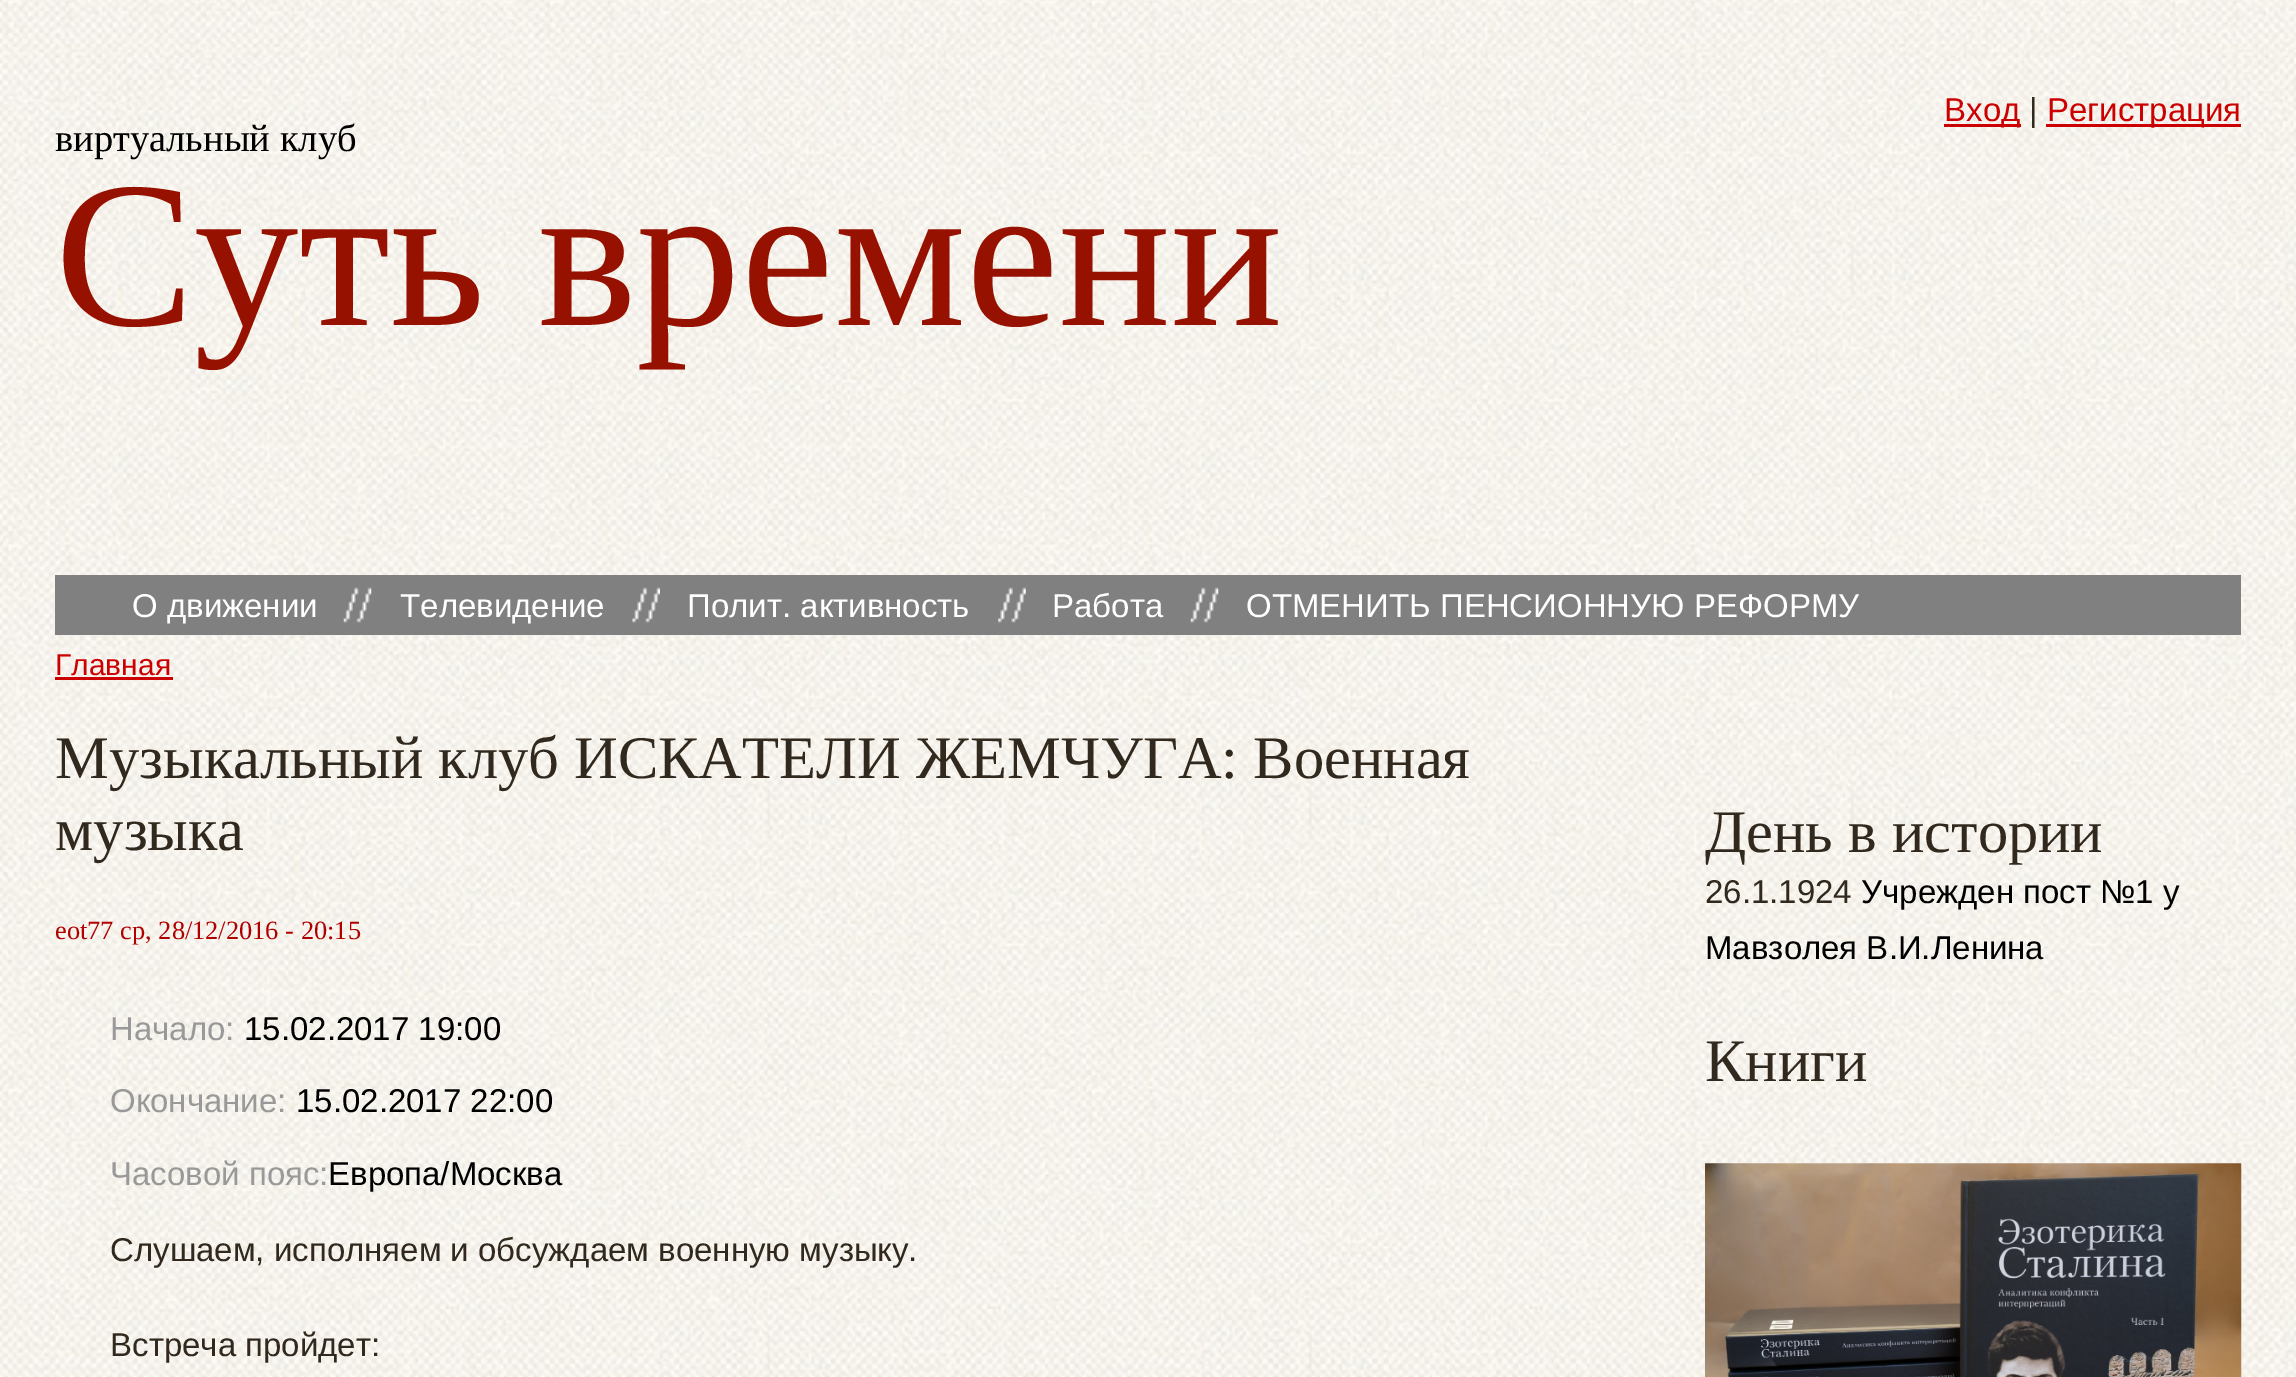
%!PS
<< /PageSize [2296 1377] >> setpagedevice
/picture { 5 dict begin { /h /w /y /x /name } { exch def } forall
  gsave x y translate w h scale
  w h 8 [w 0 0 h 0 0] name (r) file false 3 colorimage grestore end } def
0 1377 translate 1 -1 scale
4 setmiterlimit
1 setgray
0 0 2296 1377 rectfill
(img1.rgb) 0 0 2296 1377 picture
0.8 0 0 setrgbcolor
1944 124 77 3 rectfill
/LiberationSans-Regular [33 0 0 -33 0 0] selectfont
1944 121 moveto (Вход) show
0.196 0.161 0.118 setrgbcolor
2029 121 moveto (|) show
0.8 0 0 setrgbcolor
2046 124 195 3 rectfill
2047 121 moveto (Регистрация) show
0.502 setgray
55 575 2186 60 rectfill
(img2.rgb) 343 587 29 36 picture
1 setgray
132 617 moveto (О движении) show
(img3.rgb) 632 587 28 36 picture
400 617 moveto (Телевидение) show
(img4.rgb) 998 587 28 36 picture
687 617 moveto (Полит. активность) show
(img2.rgb) 1190 587 29 36 picture
1052 617 moveto (Работа) show
1246 617 moveto (ОТМЕНИТЬ ПЕНСИОННУЮ РЕФОРМУ) show
/LiberationSerif-Regular [38.5 0 0 -38.5 0 0] selectfont
0 setgray
55 151 moveto (виртуальный клуб) show
/LiberationSerif-Regular [209 0 0 -209 0 0] selectfont
0.588 0.067 0 setrgbcolor
55 325 moveto (Суть времени) show
/LiberationSans-Regular [30 0 0 -30 0 0] selectfont
0.8 0 0 setrgbcolor
55 675 moveto (Главная) show
55 677 118 3 rectfill
/LiberationSerif-Regular [60.5 0 0 -60.5 0 0] selectfont
0.196 0.161 0.118 setrgbcolor
55 778 moveto (Музыкальный клуб ИСКАТЕЛИ ЖЕМЧУГА: Военная) show
55 850 moveto (музыка) show
/LiberationSerif-Regular [26.4 0 0 -26.4 0 0] selectfont
0.694 0 0 setrgbcolor
55 939 moveto (eot77 ср, 28/12/2016 - 20:15) show
/LiberationSans-Regular [33 0 0 -33 0 0] selectfont
0.6 setgray
110 1040 moveto (Начало:) show
0 setgray
244 1040 moveto (15.02.2017 19:00) show
0.6 setgray
110 1112 moveto (Окончание:) show
0 setgray
296 1112 moveto (15.02.2017 22:00) show
0.6 setgray
110 1185 moveto (Часовой пояс:) show
0 setgray
328 1185 moveto (Европа/Москва) show
0.196 0.161 0.118 setrgbcolor
110 1261 moveto (Слушаем, исполняем и обсуждаем военную музыку.) show
110 1356 moveto (Встреча пройдет:) show
/LiberationSerif-Regular [60.5 0 0 -60.5 0 0] selectfont
1705 852 moveto (День в истории) show
/LiberationSans-Regular [33 0 0 -33 0 0] selectfont
1705 903 moveto (26.1.1924) show
0 setgray
1861 903 moveto (Учрежден пост №1 у) show
1705 959 moveto (Мавзолея В.И.Ленина) show
/LiberationSerif-Regular [60.5 0 0 -60.5 0 0] selectfont
0.196 0.161 0.118 setrgbcolor
1705 1081 moveto (Книги) show
(img5.rgb) 1705 1163 537 214 picture
showpage
